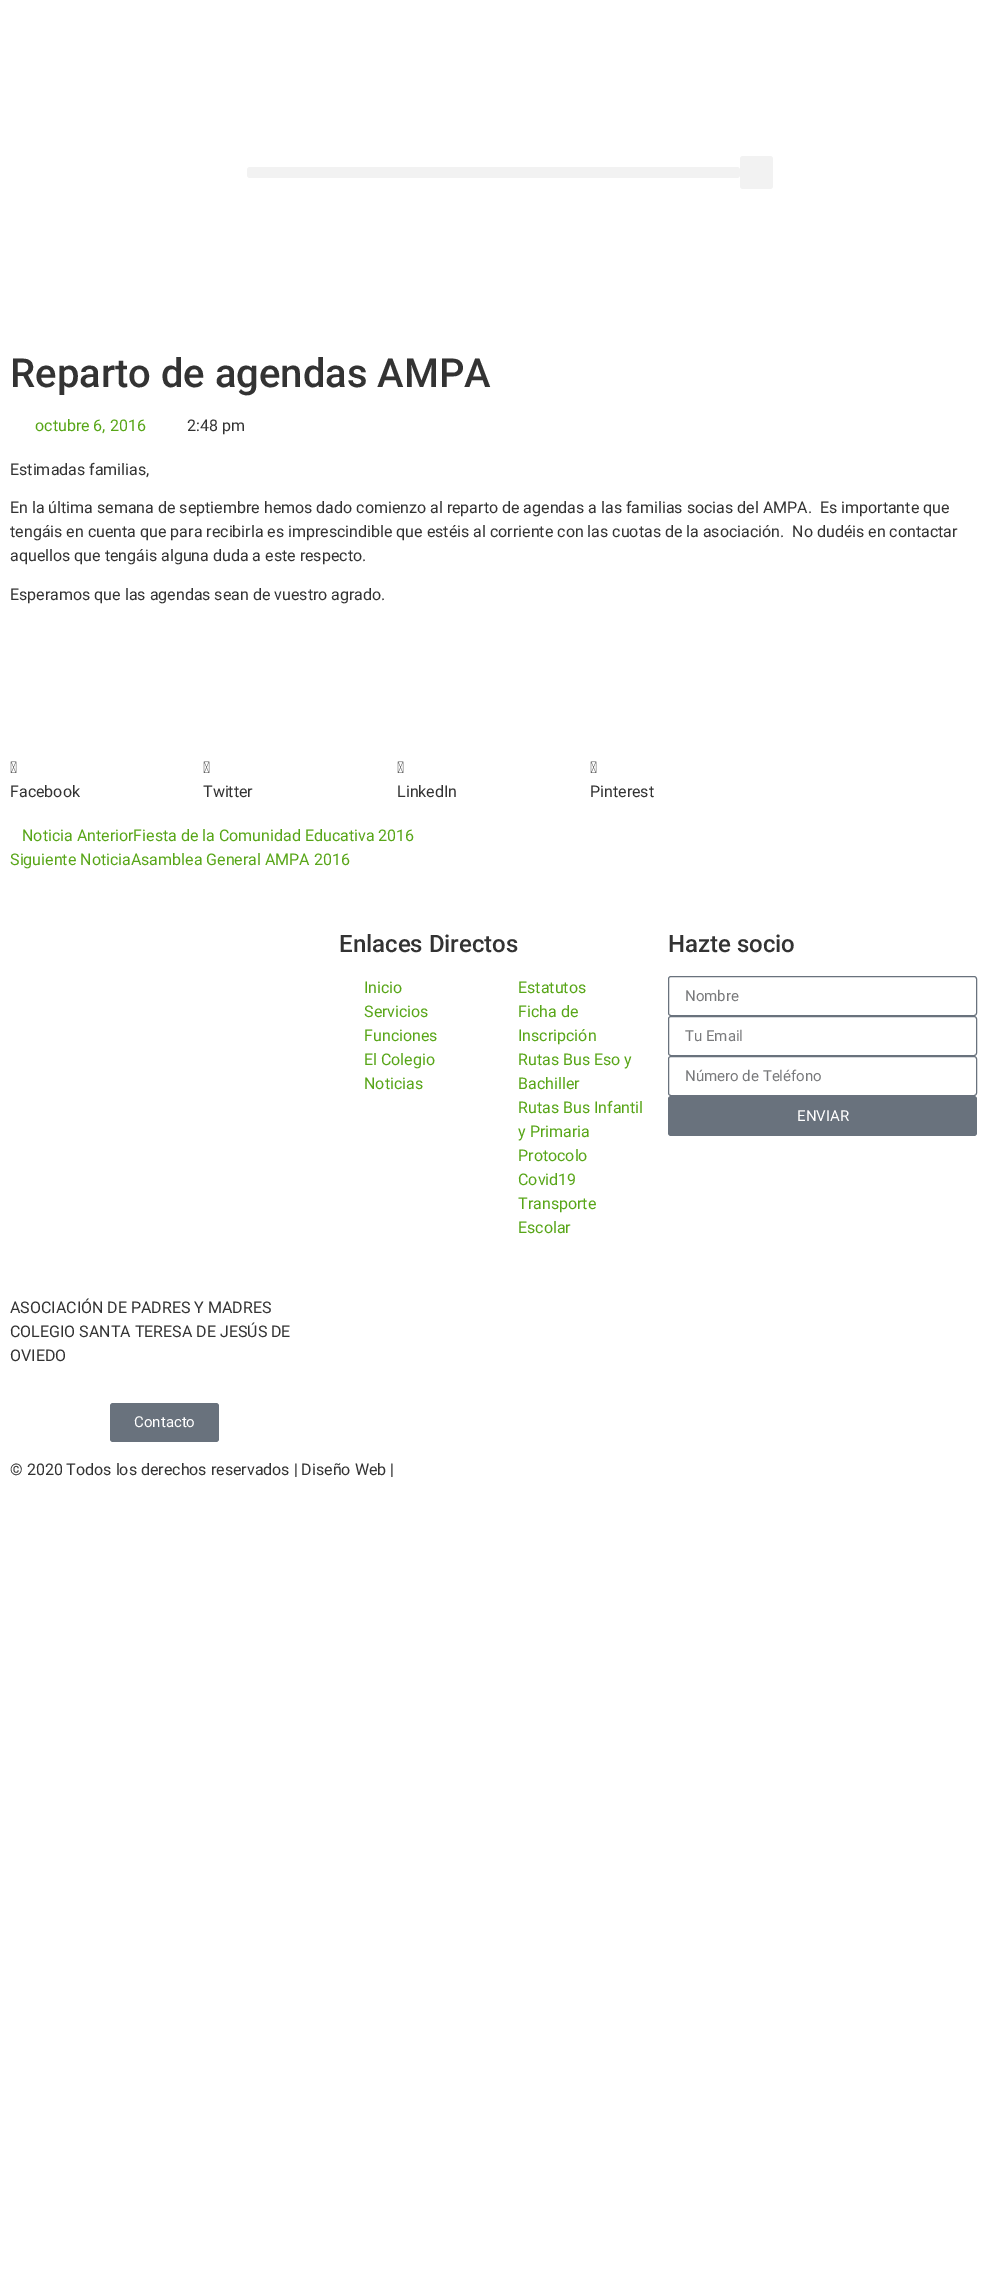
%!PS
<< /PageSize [987 2286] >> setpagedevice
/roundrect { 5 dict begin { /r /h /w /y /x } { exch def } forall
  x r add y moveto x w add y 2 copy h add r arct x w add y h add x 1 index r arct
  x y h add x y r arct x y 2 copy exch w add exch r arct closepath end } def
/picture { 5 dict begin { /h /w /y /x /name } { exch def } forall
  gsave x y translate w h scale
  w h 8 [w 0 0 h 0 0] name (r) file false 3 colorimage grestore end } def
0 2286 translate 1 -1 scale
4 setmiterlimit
1 setgray
0 0 987 2286 rectfill
0.949 setgray
247 167 493 11 3 roundrect fill
740 156 33 33 3 roundrect fill
/Roboto-Medium [40 0 0 -40 0 0] selectfont
0.2 setgray
10 387 moveto (Reparto de agendas AMPA) show
/Roboto-Regular [16 0 0 -16 0 0] selectfont
0.345 0.651 0.094 setrgbcolor
35 431 moveto (octubre 6, 2016) show
0.2 setgray
187 431 moveto (2:48 pm) show
10 475 moveto (Estimadas familias,) show
10 513 moveto (En la última semana de septiembre hemos dado comienzo al reparto de agendas a las familias socias del AMPA.  Es importante que) show
10 537 moveto (tengáis en cuenta que para recibirla es imprescindible que estéis al corriente con las cuotas de la asociación.  No dudéis en contactar) show
10 561 moveto (aquellos que tengáis alguna duda a este respecto.) show
10 600 moveto (Esperamos que las agendas sean de vuestro agrado.) show
(img1.rgb) 10 761 7 12 picture
10 797 moveto (Facebook) show
(img1.rgb) 203 761 7 12 picture
203 797 moveto (Twitter) show
(img1.rgb) 397 761 7 12 picture
397 797 moveto (LinkedIn) show
(img1.rgb) 590 761 7 12 picture
590 797 moveto (Pinterest) show
0.345 0.651 0.094 setrgbcolor
22 841 moveto (Noticia AnteriorFiesta de la Comunidad Educativa 2016) show
10 865 moveto (Siguiente NoticiaAsamblea General AMPA 2016) show
/Roboto-Medium [24 0 0 -24 0 0] selectfont
0.2 setgray
339 952 moveto (Enlaces Directos) show
/Roboto-Regular [16 0 0 -16 0 0] selectfont
0.345 0.651 0.094 setrgbcolor
364 993 moveto (Inicio) show
364 1017 moveto (Servicios) show
364 1041 moveto (Funciones) show
364 1065 moveto (El Colegio) show
364 1089 moveto (Noticias) show
518 993 moveto (Estatutos) show
518 1017 moveto (Ficha de) show
518 1041 moveto (Inscripción) show
518 1065 moveto (Rutas Bus Eso y) show
518 1089 moveto (Bachiller) show
518 1113 moveto (Rutas Bus Infantil) show
518 1137 moveto (y Primaria) show
518 1161 moveto (Protocolo) show
518 1185 moveto (Covid19) show
518 1209 moveto (Transporte) show
518 1233 moveto (Escolar) show
/Roboto-Medium [24 0 0 -24 0 0] selectfont
0.2 setgray
668 952 moveto (Hazte socio) show
0.412 0.447 0.49 setrgbcolor
668.5 976.5 308 39 2.5 roundrect stroke
/Roboto-Regular [15 0 0 -15 0 0] selectfont
0.475 0.478 0.486 setrgbcolor
685 1001 moveto (Nombre) show
0.412 0.447 0.49 setrgbcolor
668.5 1016.5 308 39 2.5 roundrect stroke
0.475 0.478 0.486 setrgbcolor
685 1041 moveto (Tu Email) show
0.412 0.447 0.49 setrgbcolor
668.5 1056.5 308 39 2.5 roundrect stroke
0.475 0.478 0.486 setrgbcolor
685 1081 moveto (Número de Teléfono) show
0.412 0.447 0.49 setrgbcolor
668 1096 309 40 3 roundrect fill
1 setgray
797 1121 moveto (ENVIAR) show
/Roboto-Regular [16 0 0 -16 0 0] selectfont
0.2 setgray
10 1313 moveto (ASOCIACIÓN DE PADRES Y MADRES) show
10 1337 moveto (COLEGIO SANTA TERESA DE JESÚS DE) show
10 1361 moveto (OVIEDO) show
0.412 0.447 0.49 setrgbcolor
110 1403 109 39 3 roundrect fill
/Roboto-Regular [15 0 0 -15 0 0] selectfont
1 setgray
134 1427 moveto (Contacto) show
/Roboto-Regular [16 0 0 -16 0 0] selectfont
0.2 setgray
10 1475 moveto (© 2020 Todos los derechos reservados | Diseño Web |) show
showpage
